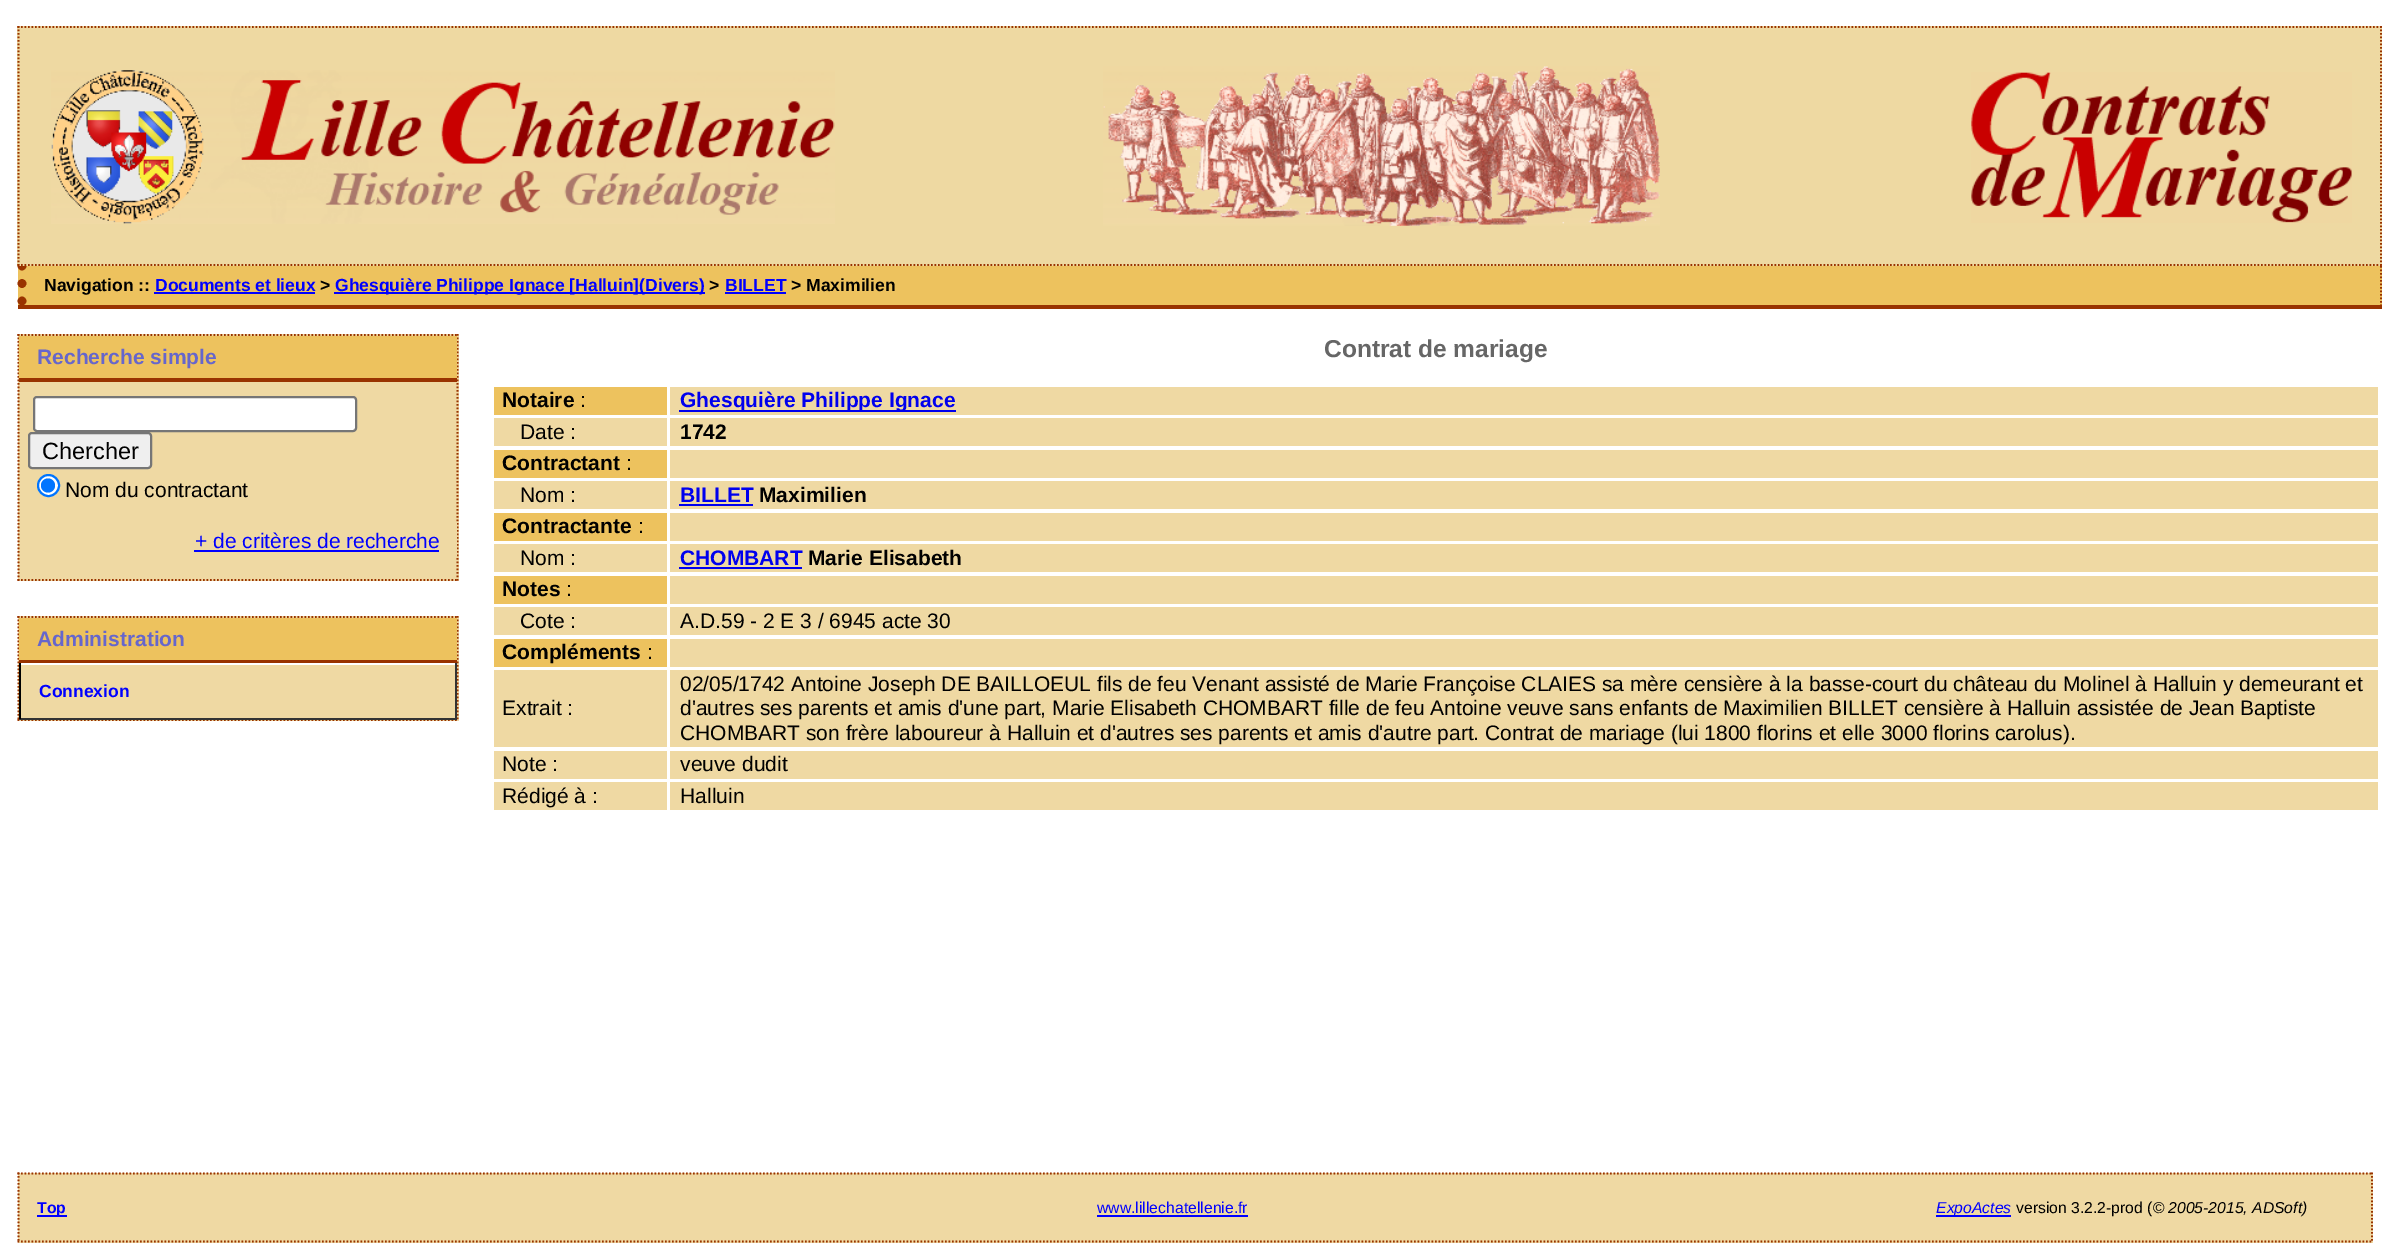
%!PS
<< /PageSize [2398 1251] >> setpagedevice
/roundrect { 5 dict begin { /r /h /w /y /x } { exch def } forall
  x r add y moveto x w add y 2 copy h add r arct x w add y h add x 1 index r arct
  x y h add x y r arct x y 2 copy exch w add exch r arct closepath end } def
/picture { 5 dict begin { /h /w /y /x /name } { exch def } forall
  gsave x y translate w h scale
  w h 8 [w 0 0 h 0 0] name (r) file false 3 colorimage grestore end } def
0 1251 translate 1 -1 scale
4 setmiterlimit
1 setgray
0 0 2398 1251 rectfill
0.929 0.761 0.369 setrgbcolor
18 266 2364 39 rectfill
0.6 0.2 0 setrgbcolor
1.8 setlinewidth
[1.75 1.75] 0 setdash
newpath 2381 266 moveto 2381 308 lineto stroke
18 305 2364 4 rectfill
8.8 setlinewidth
1 setlinecap
[0 17.5] 0 setdash
newpath 22 266 moveto 22 308 lineto stroke
0.933 0.851 0.635 setrgbcolor
17 26 2365 240 rectfill
0.6 0.2 0 setrgbcolor
1.8 setlinewidth
0 setlinecap
[1.75 1.75] 0 setdash
newpath 17.5 27 moveto 2382 27 lineto stroke
newpath 2381 26 moveto 2381 266 lineto stroke
newpath 17.5 265 moveto 2382 265 lineto stroke
newpath 18.5 26 moveto 18.5 266 lineto stroke
(img1.rgb) 51 70 784 154 picture
(img2.rgb) 1103 66 557 160 picture
(img3.rgb) 1971 72 381 151 picture
/LiberationSans-Bold [17.5 0 0 -17.5 0 0] selectfont
0 setgray
44 291 moveto (Navigation ::) show
0 0 1 setrgbcolor
155 291 moveto (Documents et lieux) show
154 292 161 2 rectfill
0 setgray
320 291 moveto (>) show
0 0 1 setrgbcolor
334 292 371 2 rectfill
335 291 moveto (Ghesquière Philippe Ignace [Halluin]\(Divers\)) show
0 setgray
709 291 moveto (>) show
0 0 1 setrgbcolor
725 291 moveto (BILLET) show
725 292 61 2 rectfill
0 setgray
791 291 moveto (> Maximilien) show
0.937 0.851 0.639 setrgbcolor
18 334 441 247 rectfill
0.6 0.2 0 setrgbcolor
newpath 17.5 335 moveto 458.5 335 lineto stroke
newpath 457.5 334 moveto 457.5 581 lineto stroke
newpath 17.5 580 moveto 458.5 580 lineto stroke
newpath 18.5 334 moveto 18.5 581 lineto stroke
0.929 0.761 0.369 setrgbcolor
19 336 438 42 rectfill
0.6 0.2 0 setrgbcolor
19 378 438 4 rectfill
/LiberationSans-Bold [21 0 0 -21 0 0] selectfont
0.4 0.4 0.8 setrgbcolor
37 364 moveto (Recherche simple) show
1 setgray
34 397 322 34 3 roundrect gsave fill grestore
0.463 setgray
2 setlinewidth
[] 0 setdash
stroke
0.937 setgray
29 433 122 35 3 roundrect gsave fill grestore
0.463 setgray
stroke
/LiberationSans-Regular [23.5 0 0 -23.5 0 0] selectfont
0 setgray
42 459 moveto (Chercher) show
1 setgray
newpath 48.5 485.5 10.5 0 360 arc closepath gsave fill grestore
0 0.459 1 setrgbcolor
stroke
newpath 48 485.5 7 0 360 arc closepath fill
/LiberationSans-Regular [21 0 0 -21 0 0] selectfont
0 setgray
65 497 moveto (Nom du contractant) show
0.937 0.851 0.639 setrgbcolor
456 523 1 34 rectfill
0 0 1 setrgbcolor
195 548 moveto (+ de critères de recherche) show
194 550 245 2 rectfill
0.937 0.851 0.639 setrgbcolor
18 616 441 105 rectfill
0.6 0.2 0 setrgbcolor
1.8 setlinewidth
[1.75 1.75] 0 setdash
newpath 17.5 617 moveto 458.5 617 lineto stroke
newpath 457.5 616 moveto 457.5 721 lineto stroke
newpath 17.5 720 moveto 458.5 720 lineto stroke
newpath 18.5 616 moveto 18.5 721 lineto stroke
0.929 0.761 0.369 setrgbcolor
19 618 438 42 rectfill
0.6 0.2 0 setrgbcolor
19 660 438 3 rectfill
/LiberationSans-Bold [21 0 0 -21 0 0] selectfont
0.4 0.4 0.8 setrgbcolor
37 646 moveto (Administration) show
1 setgray
19 663 438 2 rectfill
0.2 setgray
455 663 2 56 rectfill
19 718 438 2 rectfill
0 setgray
19 663 2 56 rectfill
/LiberationSans-Bold [17.5 0 0 -17.5 0 0] selectfont
0 0 1 setrgbcolor
39 697 moveto (Connexion) show
/LiberationSans-Bold [24.5 0 0 -24.5 0 0] selectfont
0.4 setgray
1324 357 moveto (Contrat de mariage) show
0.929 0.761 0.369 setrgbcolor
494 387 173 28 rectfill
/LiberationSans-Bold [21 0 0 -21 0 0] selectfont
0 setgray
502 407 moveto (Notaire) show
/LiberationSans-Regular [21 0 0 -21 0 0] selectfont
580 407 moveto (:) show
0.937 0.851 0.639 setrgbcolor
670 387 1708 28 rectfill
0 0 0.933 setrgbcolor
679 410 277 2 rectfill
/LiberationSans-Bold [21 0 0 -21 0 0] selectfont
680 407 moveto (Ghesquière Philippe Ignace) show
0.937 0.851 0.639 setrgbcolor
494 418 173 28 rectfill
/LiberationSans-Regular [21 0 0 -21 0 0] selectfont
0 setgray
520 439 moveto (Date :) show
0.937 0.851 0.639 setrgbcolor
670 418 1708 28 rectfill
/LiberationSans-Bold [21 0 0 -21 0 0] selectfont
0 setgray
680 439 moveto (1742) show
0.929 0.761 0.369 setrgbcolor
494 450 173 28 rectfill
0 setgray
502 470 moveto (Contractant) show
/LiberationSans-Regular [21 0 0 -21 0 0] selectfont
626 470 moveto (:) show
0.937 0.851 0.639 setrgbcolor
670 450 1708 28 rectfill
494 481 173 28 rectfill
0 setgray
520 502 moveto (Nom :) show
0.937 0.851 0.639 setrgbcolor
670 481 1708 28 rectfill
/LiberationSans-Bold [21 0 0 -21 0 0] selectfont
0 0 0.933 setrgbcolor
680 502 moveto (BILLET) show
679 504 74 2 rectfill
0 setgray
759 502 moveto (Maximilien) show
0.929 0.761 0.369 setrgbcolor
494 513 173 28 rectfill
0 setgray
502 533 moveto (Contractante) show
/LiberationSans-Regular [21 0 0 -21 0 0] selectfont
638 533 moveto (:) show
0.937 0.851 0.639 setrgbcolor
670 513 1708 28 rectfill
494 544 173 28 rectfill
0 setgray
520 565 moveto (Nom :) show
0.937 0.851 0.639 setrgbcolor
670 544 1708 28 rectfill
/LiberationSans-Bold [21 0 0 -21 0 0] selectfont
0 0 0.933 setrgbcolor
680 565 moveto (CHOMBART) show
679 567 123 2 rectfill
0 setgray
808 565 moveto (Marie Elisabeth) show
0.929 0.761 0.369 setrgbcolor
494 576 173 28 rectfill
0 setgray
502 596 moveto (Notes) show
/LiberationSans-Regular [21 0 0 -21 0 0] selectfont
566 596 moveto (:) show
0.937 0.851 0.639 setrgbcolor
670 576 1708 28 rectfill
494 607 173 28 rectfill
0 setgray
520 628 moveto (Cote :) show
0.937 0.851 0.639 setrgbcolor
670 607 1708 28 rectfill
0 setgray
680 628 moveto (A.D.59 - 2 E 3 / 6945 acte 30) show
0.929 0.761 0.369 setrgbcolor
494 639 173 28 rectfill
/LiberationSans-Bold [21 0 0 -21 0 0] selectfont
0 setgray
502 659 moveto (Compléments) show
/LiberationSans-Regular [21 0 0 -21 0 0] selectfont
647 659 moveto (:) show
0.937 0.851 0.639 setrgbcolor
670 639 1708 28 rectfill
494 670 173 77 rectfill
0 setgray
502 715 moveto (Extrait :) show
0.937 0.851 0.639 setrgbcolor
670 670 1708 77 rectfill
0 setgray
680 691 moveto (02/05/1742 Antoine Joseph DE BAILLOEUL fils de feu Venant assisté de Marie Françoise CLAIES sa mère censière à la basse-court du château du Molinel à Halluin y demeurant et) show
680 715 moveto (d'autres ses parents et amis d'une part, Marie Elisabeth CHOMBART fille de feu Antoine veuve sans enfants de Maximilien BILLET censière à Halluin assistée de Jean Baptiste) show
680 740 moveto (CHOMBART son frère laboureur à Halluin et d'autres ses parents et amis d'autre part. Contrat de mariage \(lui 1800 florins et elle 3000 florins carolus\).) show
0.937 0.851 0.639 setrgbcolor
494 751 173 28 rectfill
0 setgray
502 771 moveto (Note :) show
0.937 0.851 0.639 setrgbcolor
670 751 1708 28 rectfill
0 setgray
680 771 moveto (veuve dudit) show
0.937 0.851 0.639 setrgbcolor
494 782 173 28 rectfill
0 setgray
502 803 moveto (Rédigé à :) show
0.937 0.851 0.639 setrgbcolor
670 782 1708 28 rectfill
0 setgray
680 803 moveto (Halluin) show
0.937 0.851 0.639 setrgbcolor
18 1173 2355 70 rectfill
0.6 0.2 0 setrgbcolor
newpath 17.5 1173.5 moveto 2373 1173.5 lineto stroke
newpath 2372 1172.5 moveto 2372 1242.5 lineto stroke
newpath 17.5 1241.5 moveto 2373 1241.5 lineto stroke
newpath 18.5 1172.5 moveto 18.5 1242.5 lineto stroke
0 0 1 setrgbcolor
37 1215 30 2 rectfill
/LiberationSans-Bold [15.75 0 0 -15.75 0 0] selectfont
37 1213 moveto (Top) show
/LiberationSans-Regular [15.75 0 0 -15.75 0 0] selectfont
1097 1213 moveto (www.lillechatellenie.fr) show
1097 1215 151 2 rectfill
1936 1215 75 2 rectfill
/LiberationSans-Italic [15.75 0 0 -15.75 0 0] selectfont
1936 1213 moveto (ExpoActes) show
/LiberationSans-Regular [15.75 0 0 -15.75 0 0] selectfont
0 setgray
2016 1213 moveto (version 3.2.2-prod \(©) show
/LiberationSans-Italic [15.75 0 0 -15.75 0 0] selectfont
2168 1213 moveto (2005-2015, ADSoft\)) show
showpage
